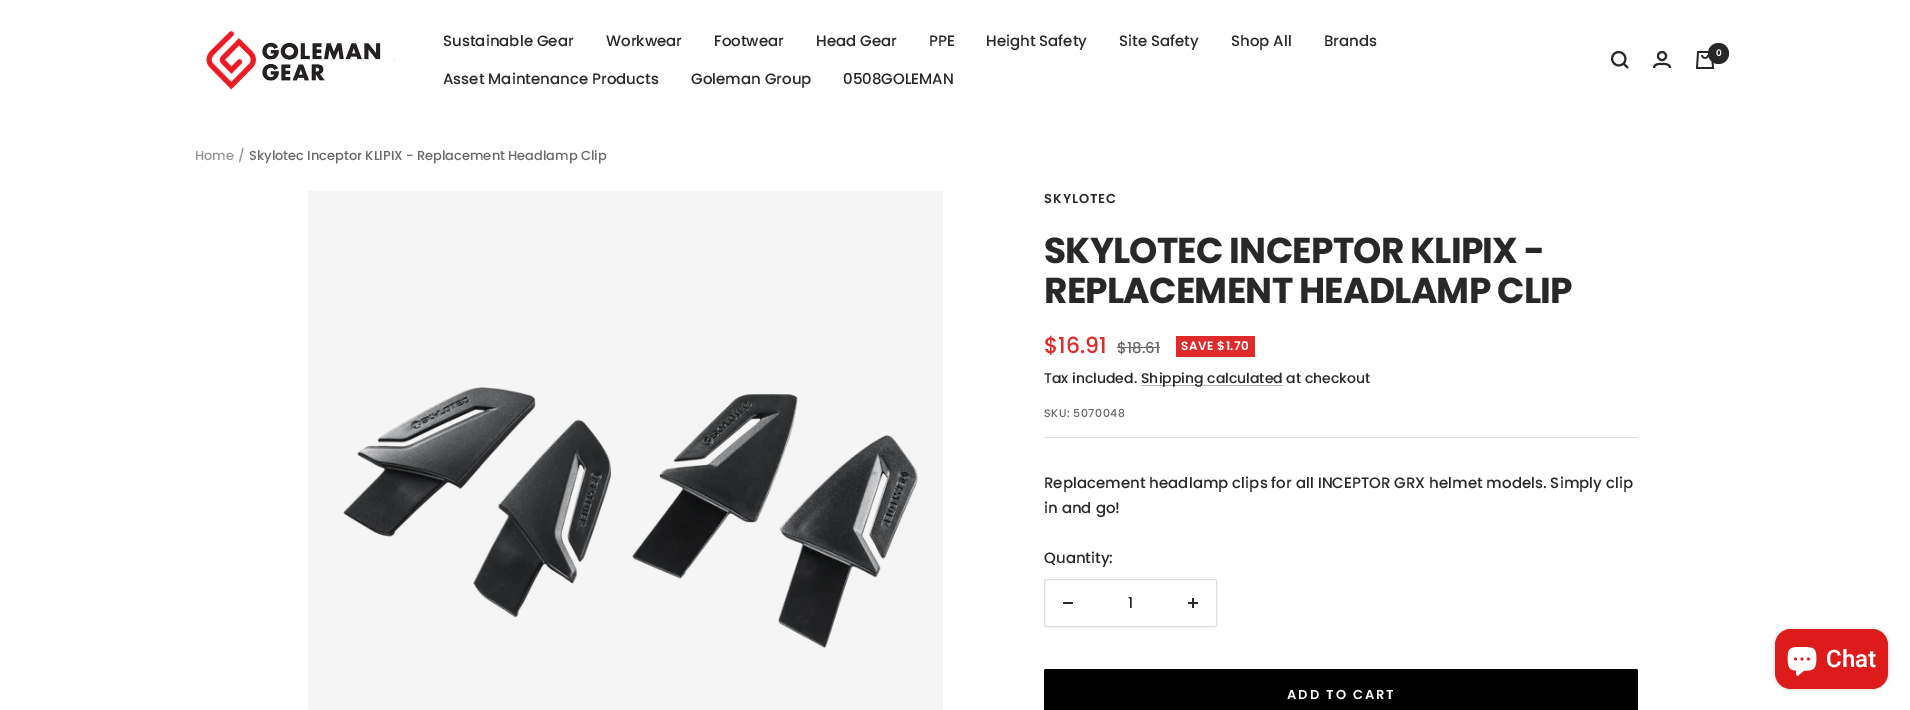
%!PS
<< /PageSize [1910 710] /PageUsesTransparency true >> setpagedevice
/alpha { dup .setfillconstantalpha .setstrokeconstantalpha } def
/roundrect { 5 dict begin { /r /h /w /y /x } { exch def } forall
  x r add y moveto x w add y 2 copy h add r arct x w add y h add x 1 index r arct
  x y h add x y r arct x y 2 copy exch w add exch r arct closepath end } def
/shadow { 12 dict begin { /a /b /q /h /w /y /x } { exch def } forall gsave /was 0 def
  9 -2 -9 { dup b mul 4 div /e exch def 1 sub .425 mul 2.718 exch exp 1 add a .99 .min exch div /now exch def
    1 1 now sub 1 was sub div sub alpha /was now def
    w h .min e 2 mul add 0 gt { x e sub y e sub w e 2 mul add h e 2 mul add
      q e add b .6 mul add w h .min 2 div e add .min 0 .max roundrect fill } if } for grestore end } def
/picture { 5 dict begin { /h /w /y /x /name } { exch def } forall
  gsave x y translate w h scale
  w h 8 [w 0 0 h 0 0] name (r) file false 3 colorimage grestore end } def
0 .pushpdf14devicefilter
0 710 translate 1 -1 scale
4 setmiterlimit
1 setgray
0 0 1910 710 rectfill
(img1.rgb) 205 30 190 60 picture
/Poppins-Medium [15 0 0 -15 0 0] selectfont
0.157 setgray
443 46 moveto (Sustainable Gear) show
606 46 moveto (Workwear) show
714 46 moveto (Footwear) show
816 46 moveto (Head Gear) show
929 46 moveto (PPE) show
986 46 moveto (Height Safety) show
1119 46 moveto (Site Safety) show
1231 46 moveto (Shop All) show
1324 46 moveto (Brands) show
443 84 moveto (Asset Maintenance Products) show
691 84 moveto (Goleman Group) show
843 84 moveto (0508GOLEMAN) show
2 setlinewidth
newpath 1623.5 63.5 moveto 1629.5 57 1620.5 48 1614 54 curveto 1608 60.5 1617 69.5 1623.5 63.5 curveto closepath 1623.5 63.5 moveto 1628 68 lineto stroke
newpath 1662 56 4 0 360 arc closepath stroke
newpath 1654 68 moveto 1654 63.5 1659 64 1662 64 curveto 1665 64 1670 63.5 1670 68 curveto stroke
(img2.rgb) 1695 51 20 18 picture
newpath 1718.5 53.5 10.5 0 360 arc closepath fill
/Poppins-SemiBold [9 0 0 -9 0 0] selectfont
1 setgray
1716 56 moveto (0) show
/Poppins-Medium [13 0 0 -13 0 0] selectfont
0.588 setgray
195 160 moveto (Home) show
238 160 moveto (/) show
0.412 setgray
249 160 moveto (Skylotec Inceptor KLIPIX - Replacement Headlamp Clip) show
0.961 setgray
308 191 635 519 rectfill
(img3.rgb) 343 387 575 261 picture
0.875 setgray
1044 437 594 1 rectfill
/Poppins-SemiBold [13 0 0 -13 0 0] selectfont
0.157 setgray
1044 203 moveto 1 0 (SKYLOTEC) ashow
/Poppins-Bold [36 0 0 -36 0 0] selectfont
1044 263 moveto -0.8 0 (SKYLOTEC INCEPTOR KLIPIX -) ashow
1044 303 moveto -0.8 0 (REPLACEMENT HEADLAMP CLIP) ashow
/Poppins-Medium [22 0 0 -22 0 0] selectfont
0.871 0.165 0.165 setrgbcolor
1044 353 moveto ($16.91) show
/Poppins-Medium [15 0 0 -15 0 0] selectfont
0.412 setgray
1117 353 moveto ($18.61) show
1117 347 43 1 rectfill
0.871 0.165 0.165 setrgbcolor
1176 336 79 21 rectfill
/Poppins-SemiBold [12 0 0 -12 0 0] selectfont
1 setgray
1181 350 moveto 0.5 0 (SAVE $1.70) ashow
/Poppins-Medium [14 0 0 -14 0 0] selectfont
0.157 setgray
1044 383 moveto (Tax included.) show
0.706 setgray
1141 385 142 1 rectfill
0.157 setgray
1141 383 moveto (Shipping calculated at checkout) show
/Poppins-Medium [11 0 0 -11 0 0] selectfont
0.412 setgray
1044 417 moveto 0.5 0 (SKU: 5070048) ashow
/Poppins-Medium [15 0 0 -15 0 0] selectfont
0.157 setgray
1044 488 moveto (Replacement headlamp clips for all INCEPTOR GRX helmet models. Simply clip) show
1044 513 moveto (in and go!) show
1044 563 moveto (Quantity:) show
0.875 setgray
1 setlinewidth
1044.5 579.5 172 47 1.5 roundrect stroke
0.157 setgray
1063 602 10 2 rectfill
1128 608 moveto (1) show
(img4.rgb) 1188 598 10 10 picture
0 setgray
1044 669 594 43 2 roundrect fill
/Poppins-SemiBold [13 0 0 -13 0 0] selectfont
1 setgray
1287 699 moveto 2 0 (ADD TO CART) ashow
0 setgray
1775 629 113 60 16 2.5 0.15 shadow
0.871 0.106 0.106 setrgbcolor
1775 629 113 60 16 roundrect fill
(img5.rgb) 1787 647 30 29 picture
/Roboto-SemiBold [24 0 0 -24 0 0] selectfont
1 setgray
1826 667 moveto (Chat) show
.poppdf14devicefilter showpage
